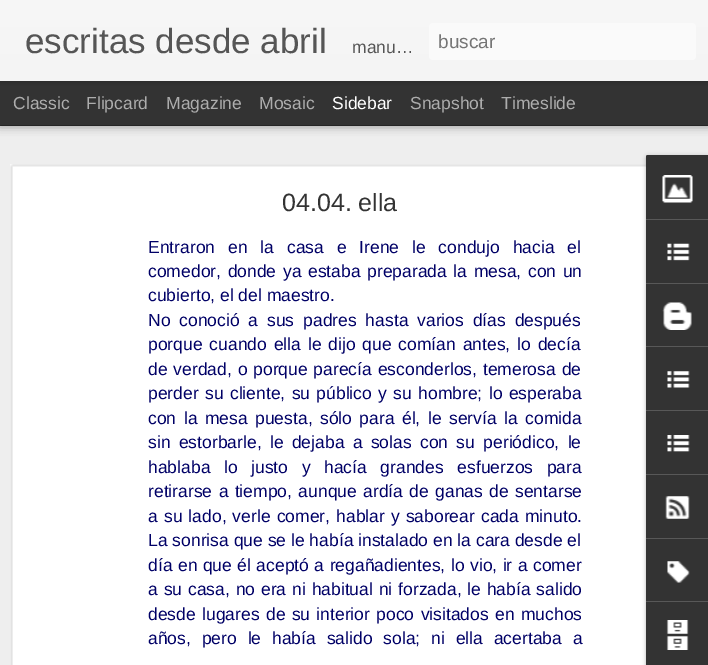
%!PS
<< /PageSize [708 665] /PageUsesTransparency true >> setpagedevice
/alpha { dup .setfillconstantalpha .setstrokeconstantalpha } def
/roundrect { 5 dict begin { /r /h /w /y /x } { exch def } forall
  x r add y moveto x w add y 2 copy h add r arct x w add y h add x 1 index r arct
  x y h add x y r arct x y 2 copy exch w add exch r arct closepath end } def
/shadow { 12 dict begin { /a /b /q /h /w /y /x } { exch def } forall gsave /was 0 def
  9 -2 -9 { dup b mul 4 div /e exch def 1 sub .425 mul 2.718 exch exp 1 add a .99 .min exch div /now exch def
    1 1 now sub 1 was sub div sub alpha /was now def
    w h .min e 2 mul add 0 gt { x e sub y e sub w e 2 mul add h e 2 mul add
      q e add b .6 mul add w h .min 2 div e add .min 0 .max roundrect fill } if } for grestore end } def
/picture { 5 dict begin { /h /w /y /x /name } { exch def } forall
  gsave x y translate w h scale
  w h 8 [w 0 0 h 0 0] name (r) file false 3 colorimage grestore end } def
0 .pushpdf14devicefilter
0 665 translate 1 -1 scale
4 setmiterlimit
0.2 setgray
0 0 708 665 rectfill
0.933 setgray
0 126 708 539 rectfill
0 setgray
0 81 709 44 0 5 0.5 shadow
0.2 setgray
0 81 708 44 rectfill
0 setgray
0 0 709 81 0 3 0.3 shadow
gsave newpath 0 0 moveto 708 0 lineto 708 81 lineto 0 81 lineto closepath clip newpath
<< /ShadingType 2 /ColorSpace /DeviceRGB /Coords [0 0 0 81] /Extend [true true] /Function << /FunctionType 2 /Domain [0 1] /C0 [0.969 0.969 0.969] /C1 [0.957 0.957 0.957] /N 1 >> >> shfill grestore
/LiberationSans-Regular [35 0 0 -35 0 0] selectfont
0.333 setgray
25 53 moveto (escritas desde abril) show
/LiberationSans-Regular [17.5 0 0 -17.5 0 0] selectfont
352 53 moveto (manu…) show
0.98 setgray
429 23 267 37 4 roundrect fill
/LiberationSans-Regular [19 0 0 -19 0 0] selectfont
0.459 setgray
438 48 moveto (buscar) show
/LiberationSans-Regular [17.5 0 0 -17.5 0 0] selectfont
0.678 setgray
13 109 moveto (Classic) show
86 109 moveto (Flipcard) show
166 109 moveto (Magazine) show
259 109 moveto (Mosaic) show
1 setgray
332 109 moveto (Sidebar) show
0.678 setgray
410 109 moveto (Snapshot) show
501 109 moveto (Timeslide) show
1 setgray
10 164 636 501 rectfill
(img1.rgb) 10 164 636 501 picture
/LiberationSans-Regular [25 0 0 -25 0 0] selectfont
0.2 setgray
282 211 moveto (04.04. ella) show
/LiberationSans-Regular [17.5 0 0 -17.5 0 0] selectfont
0 0 0.4 setrgbcolor
148 253 moveto 8 0 32 (Entraron en la casa e Irene le condujo hacia el) widthshow
148 277 moveto 1.75 0 32 (comedor, donde ya estaba preparada la mesa, con un) widthshow
148 301 moveto (cubierto, el del maestro.) show
148 326 moveto 4 0 32 (No conoció a sus padres hasta varios días después) widthshow
148 350 moveto 2 0 32 (porque cuando ella le dijo que comían antes, lo decía) widthshow
148 375 moveto 1 0 32 (de verdad, o porque parecía esconderlos, temerosa de) widthshow
148 399 moveto 1.5 0 32 (perder su cliente, su público y su hombre; lo esperaba) widthshow
148 424 moveto 2.6 0 32 (con la mesa puesta, sólo para él, le servía la comida) widthshow
148 448 moveto 3.5 0 32 (sin estorbarle, le dejaba a solas con su periódico, le) widthshow
148 473 moveto 8.75 0 32 (hablaba lo justo y hacía grandes esfuerzos para) widthshow
148 497 moveto 1.5 0 32 (retirarse a tiempo, aunque ardía de ganas de sentarse) widthshow
148 522 moveto 1.25 0 32 (a su lado, verle comer, hablar y saborear cada minuto.) widthshow
148 546 moveto (La sonrisa que se le había instalado en la cara desde el) show
148 571 moveto 0.6 0 32 (día en que él aceptó a regañadientes, lo vio, ir a comer) widthshow
148 595 moveto 1 0 32 (a su casa, no era ni habitual ni forzada, le había salido) widthshow
148 620 moveto 1.5 0 32 (desde lugares de su interior poco visitados en muchos) widthshow
148 644 moveto 6 0 32 (años, pero le había salido sola; ni ella acertaba a) widthshow
0 setgray
646 156 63 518 2.5 2 0.3 shadow
0.2 setgray
newpath 648.5 155 moveto 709 155 lineto 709 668 lineto 648.5 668 lineto 647 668 646 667 646 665.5 curveto 646 157.5 lineto 646 156 647 155 648.5 155 curveto closepath fill
newpath 648.5 155 moveto 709 155 lineto 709 219 lineto 646 219 lineto 646 157.5 lineto 646 156 647 155 648.5 155 curveto closepath fill
(img2.rgb) 662 175 31 28 picture
0.345 setgray
646 219 62 1 rectfill
(img3.rgb) 667 243 23 18 picture
646 283 62 1 rectfill
(img4.rgb) 662 302 30 28 picture
646 346 62 1 rectfill
(img5.rgb) 667 371 23 17 picture
646 410 62 1 rectfill
(img6.rgb) 667 435 23 17 picture
646 474 62 1 rectfill
(img7.rgb) 665 496 25 23 picture
646 538 62 1 rectfill
(img8.rgb) 667 561 23 22 picture
646 601 62 1 rectfill
(img9.rgb) 666 620 23 30 picture
.poppdf14devicefilter showpage
